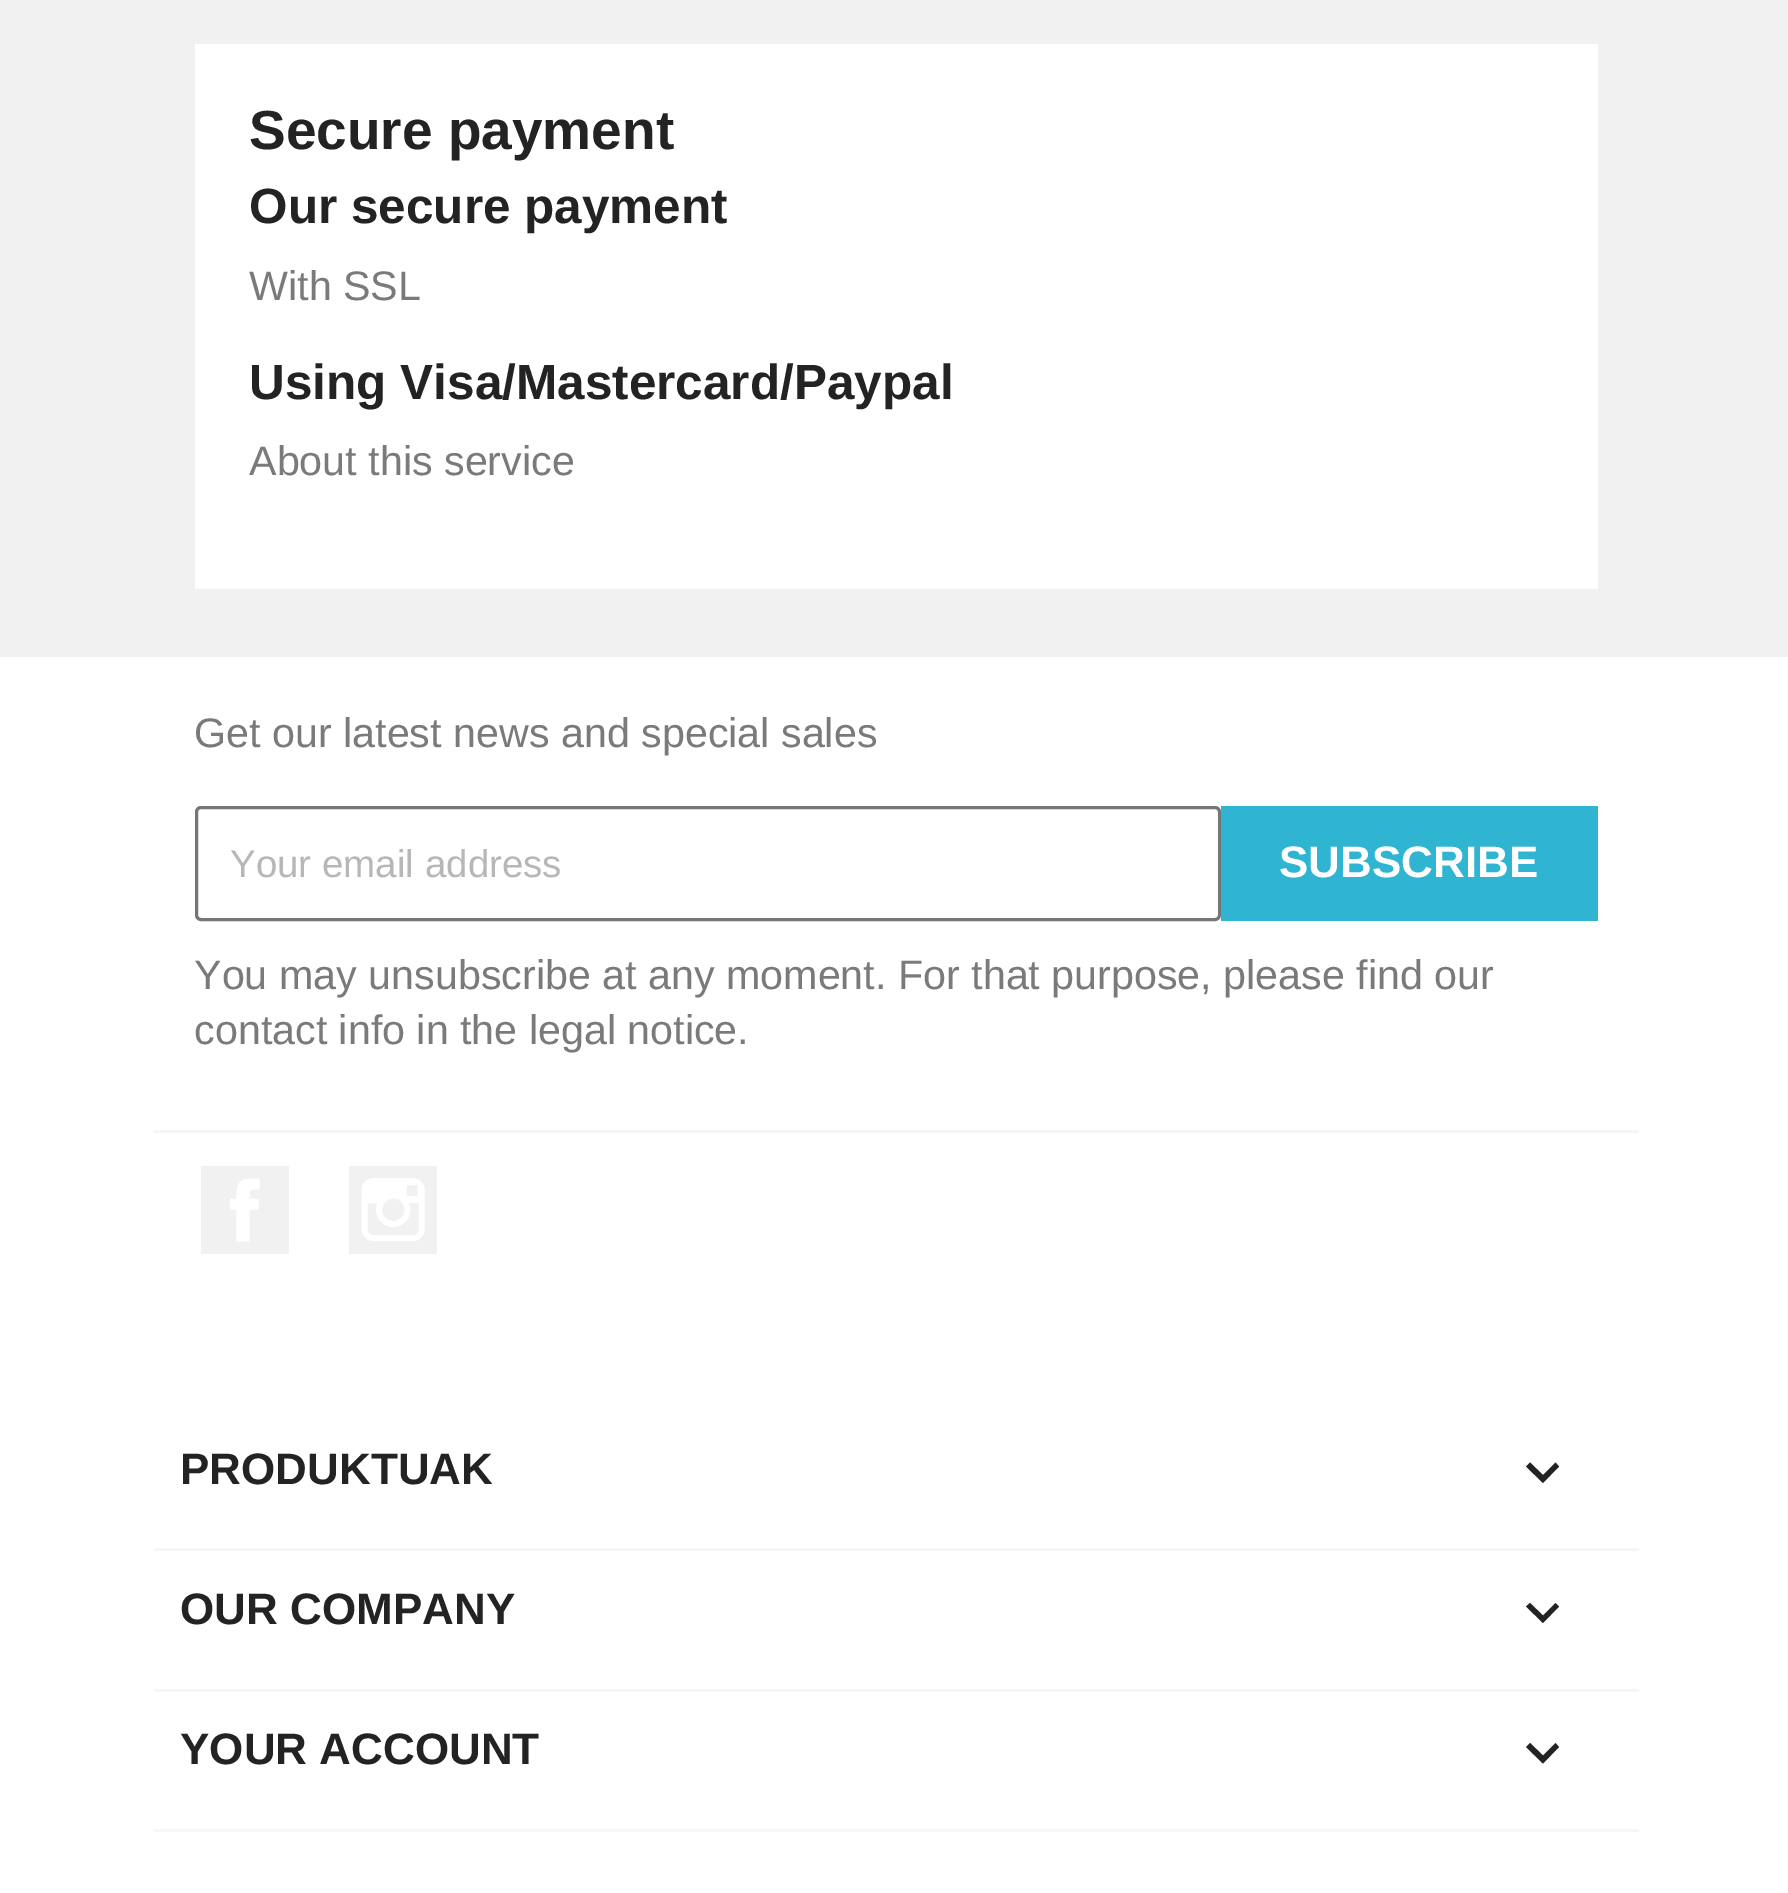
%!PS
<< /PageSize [1788 1893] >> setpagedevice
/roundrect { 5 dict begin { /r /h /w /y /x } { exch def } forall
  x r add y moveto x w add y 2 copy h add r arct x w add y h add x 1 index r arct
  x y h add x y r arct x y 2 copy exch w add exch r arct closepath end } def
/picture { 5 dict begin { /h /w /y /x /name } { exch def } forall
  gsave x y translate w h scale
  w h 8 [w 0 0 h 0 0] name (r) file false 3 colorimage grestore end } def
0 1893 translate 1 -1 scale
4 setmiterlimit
1 setgray
0 0 1788 1893 rectfill
0.945 setgray
0 0 1788 657 rectfill
1 setgray
195 44 1403 545 rectfill
/LiberationSans-Bold [55 0 0 -55 0 0] selectfont
0.137 setgray
249 149 moveto (Secure payment) show
/LiberationSans-Bold [49.5 0 0 -49.5 0 0] selectfont
249 223 moveto (Our secure payment) show
/LiberationSans-Regular [41.25 0 0 -41.25 0 0] selectfont
0.478 setgray
249 300 moveto (With SSL) show
/LiberationSans-Bold [49.5 0 0 -49.5 0 0] selectfont
0.137 setgray
249 399 moveto (Using Visa/Mastercard/Paypal) show
/LiberationSans-Regular [41.25 0 0 -41.25 0 0] selectfont
0.478 setgray
249 475 moveto (About this service) show
0.965 setgray
154 1130 1485 3 rectfill
0.478 setgray
194 747 moveto (Get our latest news and special sales) show
0.463 setgray
3 setlinewidth
196.5 807.5 1023 112 4.5 roundrect stroke
/LiberationSans-Regular [38.5 0 0 -38.5 0 0] selectfont
0.718 setgray
230 877 moveto (Your email address) show
0.184 0.71 0.824 setrgbcolor
1221 806 377 115 rectfill
/LiberationSans-Bold [44 0 0 -44 0 0] selectfont
1 setgray
1279 877 moveto (SUBSCRIBE) show
/LiberationSans-Regular [41.25 0 0 -41.25 0 0] selectfont
0.478 setgray
194 989 moveto (You may unsubscribe at any moment. For that purpose, please find our) show
194 1044 moveto (contact info in the legal notice.) show
0.945 setgray
201 1166 88 88 rectfill
(img1.rgb) 230 1178 30 64 picture
349 1166 88 88 rectfill
(img2.rgb) 361 1178 64 63 picture
0.965 setgray
154 1548 1485 3 rectfill
/LiberationSans-Bold [44 0 0 -44 0 0] selectfont
0.137 setgray
180 1484 moveto (PRODUKTUAK) show
newpath 1530 1462.5 moveto 1543 1475 lineto 1555.5 1462.5 lineto 1559 1466.5 lineto 1543 1483 lineto 1526 1466.5 lineto closepath fill
0.965 setgray
154 1689 1485 3 rectfill
0.137 setgray
180 1624 moveto (OUR COMPANY) show
newpath 1530 1603 moveto 1543 1615.5 lineto 1555.5 1603 lineto 1559 1606.5 lineto 1543 1623 lineto 1526 1606.5 lineto closepath fill
0.965 setgray
154 1829 1485 3 rectfill
0.137 setgray
180 1764 moveto (YOUR ACCOUNT) show
newpath 1530 1743 moveto 1543 1755.5 lineto 1555.5 1743 lineto 1559 1747 lineto 1543 1763.5 lineto 1526 1747 lineto closepath fill
showpage
